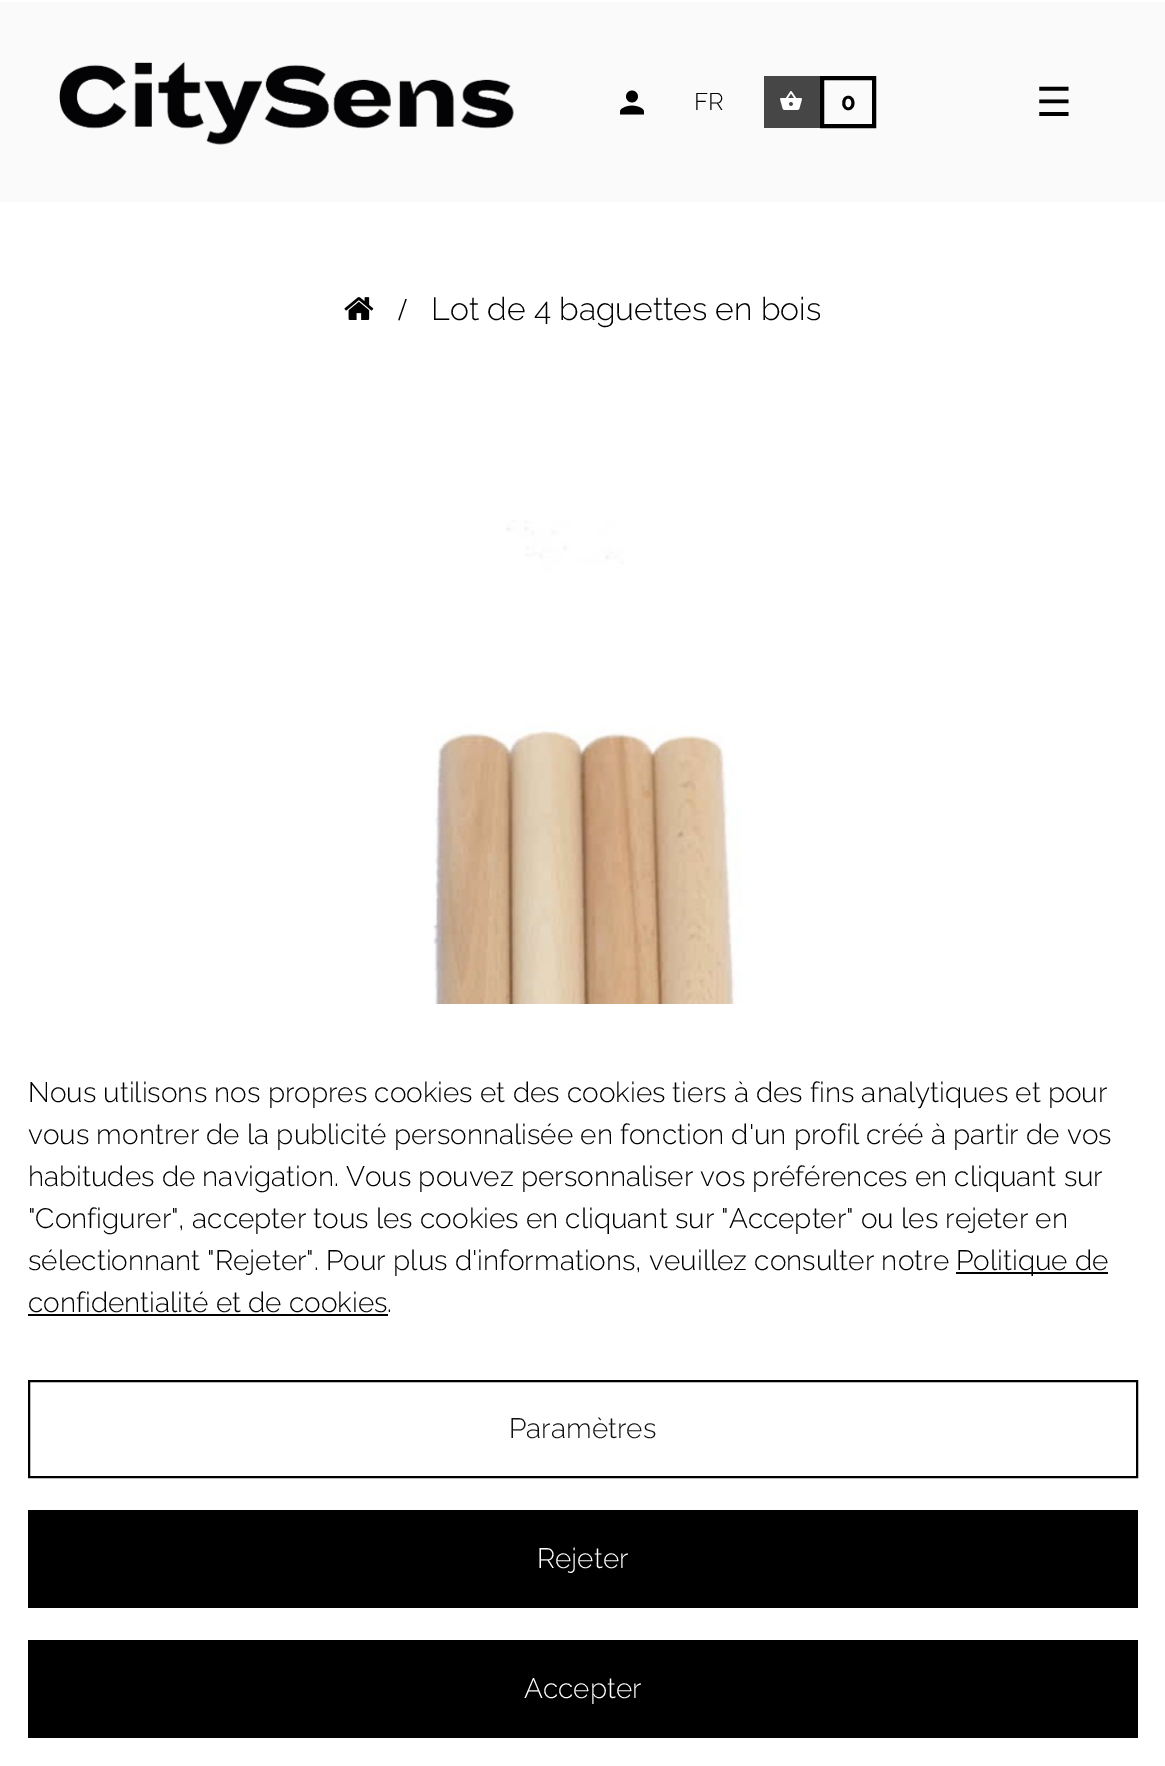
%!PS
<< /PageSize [1165 1766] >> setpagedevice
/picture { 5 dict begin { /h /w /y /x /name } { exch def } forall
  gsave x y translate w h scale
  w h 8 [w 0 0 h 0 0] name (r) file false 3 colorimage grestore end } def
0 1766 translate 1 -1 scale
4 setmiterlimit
1 setgray
0 0 1165 1766 rectfill
0.98 setgray
0 2 1165 200 rectfill
(img1.rgb) 59 61 455 84 picture
(img2.rgb) 620 90 24 25 picture
/Raleway-Light [24 0 0 -24 0 0] selectfont
0 setgray
694 110 moveto (FR) show
0.275 setgray
764 76 56 52 rectfill
(img3.rgb) 780 91 22 19 picture
0 setgray
4 setlinewidth
822 78 52 48 rectstroke
/Raleway-Bold [24 0 0 -24 0 0] selectfont
841 110 moveto (0) show
/DejaVuSans-Regular [40 0 0 -40 0 0] selectfont
1036 116 moveto (☰) show
(img4.rgb) 344 297 30 23 picture
/LiberationSerif-Regular [32 0 0 -32 0 0] selectfont
398 320 moveto (/) show
/Raleway-Light [32 0 0 -32 0 0] selectfont
431 320 moveto (Lot de 4 baguettes en bois) show
(img5.rgb) 429 520 329 484 picture
/Raleway-Light [28 0 0 -28 0 0] selectfont
28 1102 moveto (Nous utilisons nos propres cookies et des cookies tiers à des fins analytiques et pour) show
28 1144 moveto (vous montrer de la publicité personnalisée en fonction d'un profil créé à partir de vos) show
28 1186 moveto (habitudes de navigation. Vous pouvez personnaliser vos préférences en cliquant sur) show
28 1228 moveto ("Configurer", accepter tous les cookies en cliquant sur "Accepter" ou les rejeter en) show
28 1270 moveto (sélectionnant "Rejeter". Pour plus d'informations, veuillez consulter notre) show
956 1272 152 2 rectfill
956 1270 moveto (Politique de) show
28 1312 moveto (confidentialité et de cookies.) show
28 1314 360 2 rectfill
2 setlinewidth
29 1381 1108 96 rectstroke
0.067 setgray
509 1438 moveto (Paramètres) show
0 setgray
28 1510 1110 98 rectfill
1 setgray
537 1568 moveto (Rejeter) show
0 setgray
28 1640 1110 98 rectfill
1 setgray
524 1698 moveto (Accepter) show
showpage
